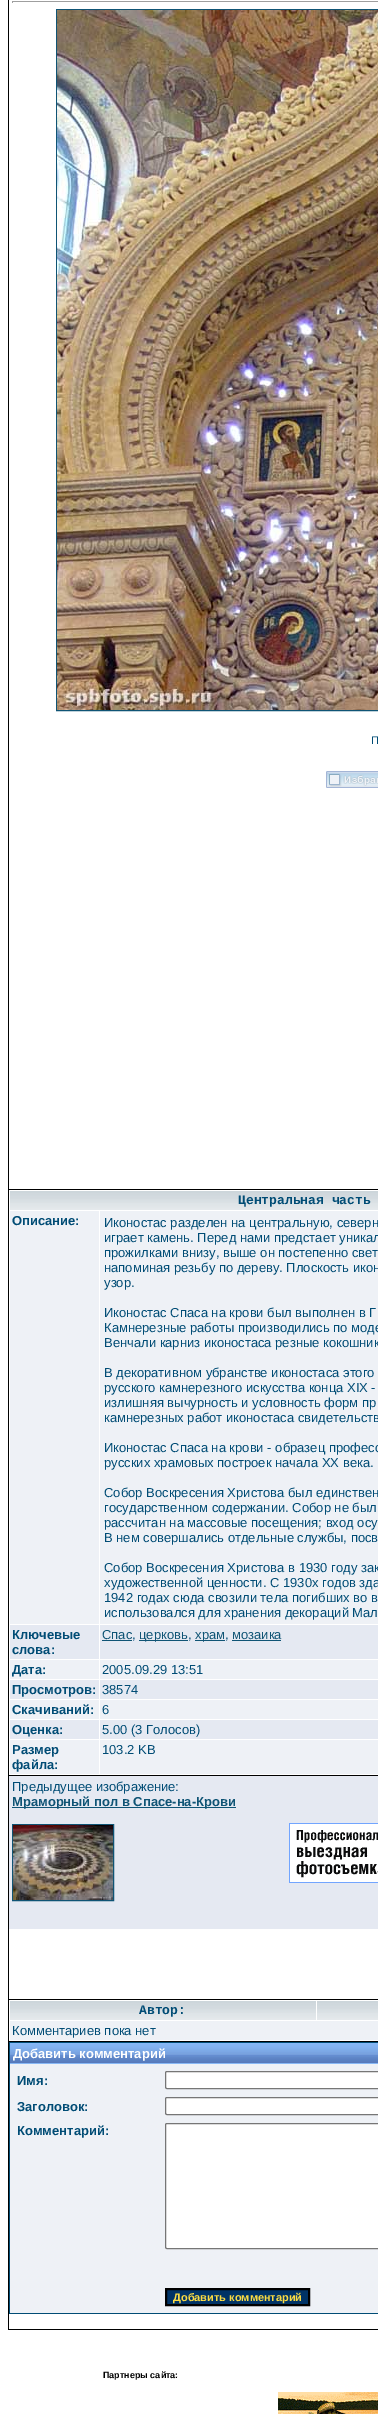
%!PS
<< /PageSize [378 2414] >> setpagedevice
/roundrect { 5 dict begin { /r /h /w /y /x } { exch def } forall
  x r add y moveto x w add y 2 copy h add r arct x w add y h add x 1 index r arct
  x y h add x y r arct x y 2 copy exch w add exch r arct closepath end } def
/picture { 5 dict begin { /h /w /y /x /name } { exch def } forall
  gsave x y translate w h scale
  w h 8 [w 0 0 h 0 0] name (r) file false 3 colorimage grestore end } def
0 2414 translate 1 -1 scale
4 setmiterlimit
1 setgray
0 0 378 2414 rectfill
0 setgray
8 0 370 2330 rectfill
1 setgray
9 0 369 2329 rectfill
0.624 setgray
12 1 366 1 rectfill
12 1 1 2 rectfill
0.059 0.329 0.459 setrgbcolor
56.5 9.5 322 701 rectstroke
(img1.rgb) 57 10 321 700 picture
/LiberationSans-Regular [11 0 0 -11 0 0] selectfont
0 0.298 0.459 setrgbcolor
371 744 moveto (П) show
(img2.rgb) 326 771 52 17 picture
0 setgray
9 1189 369 1 rectfill
(img3.rgb) 10 1191 368 19 picture
/LiberationMono-Bold [13 0 0 -13 0 0] selectfont
0 0.298 0.459 setrgbcolor
238 1204 moveto (Центральная часть) show
0.933 0.945 0.965 setrgbcolor
10 1211 89 413 rectfill
/LiberationSans-Bold [13 0 0 -13 0 0] selectfont
0 0.298 0.459 setrgbcolor
12 1225 moveto (Описание:) show
0.933 0.945 0.965 setrgbcolor
100 1211 278 413 rectfill
/LiberationSans-Regular [13 0 0 -13 0 0] selectfont
0 0.298 0.459 setrgbcolor
104 1227 moveto (Иконостас разделен на центральную, северн) show
104 1242 moveto (играет камень. Перед нами предстает уникал) show
104 1257 moveto (прожилками внизу, выше он постепенно свет) show
104 1272 moveto (напоминая резьбу по дереву. Плоскость икон) show
104 1287 moveto (узор.) show
104 1317 moveto (Иконостас Спаса на крови был выполнен в Г) show
104 1332 moveto (Камнерезные работы производились по моде) show
104 1347 moveto (Венчали карниз иконостаса резные кокошник) show
104 1377 moveto (В декоративном убранстве иконостаса этого) show
104 1392 moveto (русского камнерезного искусства конца XIX -) show
104 1407 moveto (излишняя вычурность и условность форм пр) show
104 1422 moveto (камнерезных работ иконостаса свидетельств) show
104 1452 moveto (Иконостас Спаса на крови - образец професс) show
104 1467 moveto (русских храмовых построек начала XX века.) show
104 1497 moveto (Собор Воскресения Христова был единствен) show
104 1512 moveto (государственном содержании. Собор не был) show
104 1527 moveto (рассчитан на массовые посещения; вход осу) show
104 1542 moveto (В нем совершались отдельные службы, посв) show
104 1572 moveto (Собор Воскресения Христова в 1930 году зак) show
104 1587 moveto (художественной ценности. С 1930х годов зда) show
104 1602 moveto (1942 годах сюда свозили тела погибших во в) show
104 1617 moveto (использовался для хранения декораций Мал) show
0.898 0.914 0.949 setrgbcolor
10 1625 89 34 rectfill
/LiberationSans-Bold [13 0 0 -13 0 0] selectfont
0 0.298 0.459 setrgbcolor
12 1639 moveto (Ключевые) show
12 1654 moveto (слова:) show
0.898 0.914 0.949 setrgbcolor
100 1625 278 34 rectfill
/LiberationSans-Regular [13 0 0 -13 0 0] selectfont
0.059 0.329 0.459 setrgbcolor
102 1639 moveto (Спас) show
102 1640 30 1 rectfill
0 0.298 0.459 setrgbcolor
132 1639 moveto (,) show
0.059 0.329 0.459 setrgbcolor
139 1640 49 1 rectfill
139 1639 moveto (церковь) show
0 0.298 0.459 setrgbcolor
188 1639 moveto (,) show
0.059 0.329 0.459 setrgbcolor
195 1640 30 1 rectfill
195 1639 moveto (храм) show
0 0.298 0.459 setrgbcolor
225 1639 moveto (,) show
0.059 0.329 0.459 setrgbcolor
232 1639 moveto (мозаика) show
232 1640 49 1 rectfill
0.933 0.945 0.965 setrgbcolor
10 1660 89 19 rectfill
/LiberationSans-Bold [13 0 0 -13 0 0] selectfont
0 0.298 0.459 setrgbcolor
12 1674 moveto (Дата:) show
0.933 0.945 0.965 setrgbcolor
100 1660 278 19 rectfill
/LiberationSans-Regular [13 0 0 -13 0 0] selectfont
0 0.298 0.459 setrgbcolor
102 1674 moveto (2005.09.29 13:51) show
0.898 0.914 0.949 setrgbcolor
10 1680 89 19 rectfill
/LiberationSans-Bold [13 0 0 -13 0 0] selectfont
0 0.298 0.459 setrgbcolor
12 1694 moveto (Просмотров:) show
0.898 0.914 0.949 setrgbcolor
100 1680 278 19 rectfill
/LiberationSans-Regular [13 0 0 -13 0 0] selectfont
0 0.298 0.459 setrgbcolor
102 1694 moveto (38574) show
0.933 0.945 0.965 setrgbcolor
10 1700 89 19 rectfill
/LiberationSans-Bold [13 0 0 -13 0 0] selectfont
0 0.298 0.459 setrgbcolor
12 1714 moveto (Скачиваний:) show
0.933 0.945 0.965 setrgbcolor
100 1700 278 19 rectfill
/LiberationSans-Regular [13 0 0 -13 0 0] selectfont
0 0.298 0.459 setrgbcolor
102 1714 moveto (6) show
0.898 0.914 0.949 setrgbcolor
10 1720 89 19 rectfill
/LiberationSans-Bold [13 0 0 -13 0 0] selectfont
0 0.298 0.459 setrgbcolor
12 1734 moveto (Оценка:) show
0.898 0.914 0.949 setrgbcolor
100 1720 278 19 rectfill
/LiberationSans-Regular [13 0 0 -13 0 0] selectfont
0 0.298 0.459 setrgbcolor
102 1734 moveto (5.00 \(3 Голосов\)) show
0.933 0.945 0.965 setrgbcolor
10 1740 89 34 rectfill
/LiberationSans-Bold [13 0 0 -13 0 0] selectfont
0 0.298 0.459 setrgbcolor
12 1754 moveto (Размер) show
12 1769 moveto (файла:) show
0.933 0.945 0.965 setrgbcolor
100 1740 278 34 rectfill
/LiberationSans-Regular [13 0 0 -13 0 0] selectfont
0 0.298 0.459 setrgbcolor
102 1754 moveto (103.2 KB) show
0 setgray
9 1775 369 1 rectfill
0.898 0.914 0.949 setrgbcolor
9 1776 369 153 rectfill
0 0.298 0.459 setrgbcolor
12 1791 moveto (Предыдущее изображение:) show
0.059 0.329 0.459 setrgbcolor
12 1807 224 1 rectfill
/LiberationSans-Bold [13 0 0 -13 0 0] selectfont
12 1806 moveto (Мраморный пол в Спасе-на-Крови) show
12.5 1824.5 101 76 rectstroke
(img4.rgb) 13 1825 100 75 picture
(img5.rgb) 289 1823 89 60 picture
0 setgray
9 1999 369 1 rectfill
(img6.rgb) 10 2001 306 19 picture
/LiberationMono-Bold [13 0 0 -13 0 0] selectfont
0 0.298 0.459 setrgbcolor
139 2014 moveto (Автор:) show
(img7.rgb) 317 2001 61 19 picture
0.933 0.945 0.965 setrgbcolor
10 2021 368 19 rectfill
/LiberationSans-Regular [13 0 0 -13 0 0] selectfont
0 0.298 0.459 setrgbcolor
12 2035 moveto (Комментариев пока нет) show
0 setgray
9 2041 369 1 rectfill
0 0.298 0.459 setrgbcolor
9 2042 369 272 rectfill
(img8.rgb) 10 2043 368 21 picture
/LiberationSans-Bold [13 0 0 -13 0 0] selectfont
1 setgray
13 2058 moveto (Добавить комментарий) show
0.933 0.945 0.965 setrgbcolor
10 2064 368 249 rectfill
0 0.298 0.459 setrgbcolor
17 2085 moveto (Имя:) show
1 setgray
165.5 2071.5 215 17 1.5 roundrect gsave fill grestore
0.463 setgray
stroke
0 0.298 0.459 setrgbcolor
17 2111 moveto (Заголовок:) show
1 setgray
165.5 2097.5 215 17 1.5 roundrect gsave fill grestore
0.463 setgray
stroke
0 0.298 0.459 setrgbcolor
17 2135 moveto (Комментарий:) show
1 setgray
165.5 2123.5 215 125 1.5 roundrect gsave fill grestore
0.463 setgray
stroke
0 0.2 0.4 setrgbcolor
newpath 166 2289 moveto 309 2289 lineto 309 2305 lineto 166 2305 lineto closepath gsave fill grestore
0 setgray
2 setlinewidth
stroke
/LiberationSans-Bold [11 0 0 -11 0 0] selectfont
0.988 0.863 0.263 setrgbcolor
173 2301 moveto (Добавить комментарий) show
/LiberationSans-Bold [9 0 0 -9 0 0] selectfont
0 setgray
103 2378 moveto (Партнеры сайта:) show
(img9.rgb) 278 2392 100 22 picture
showpage
